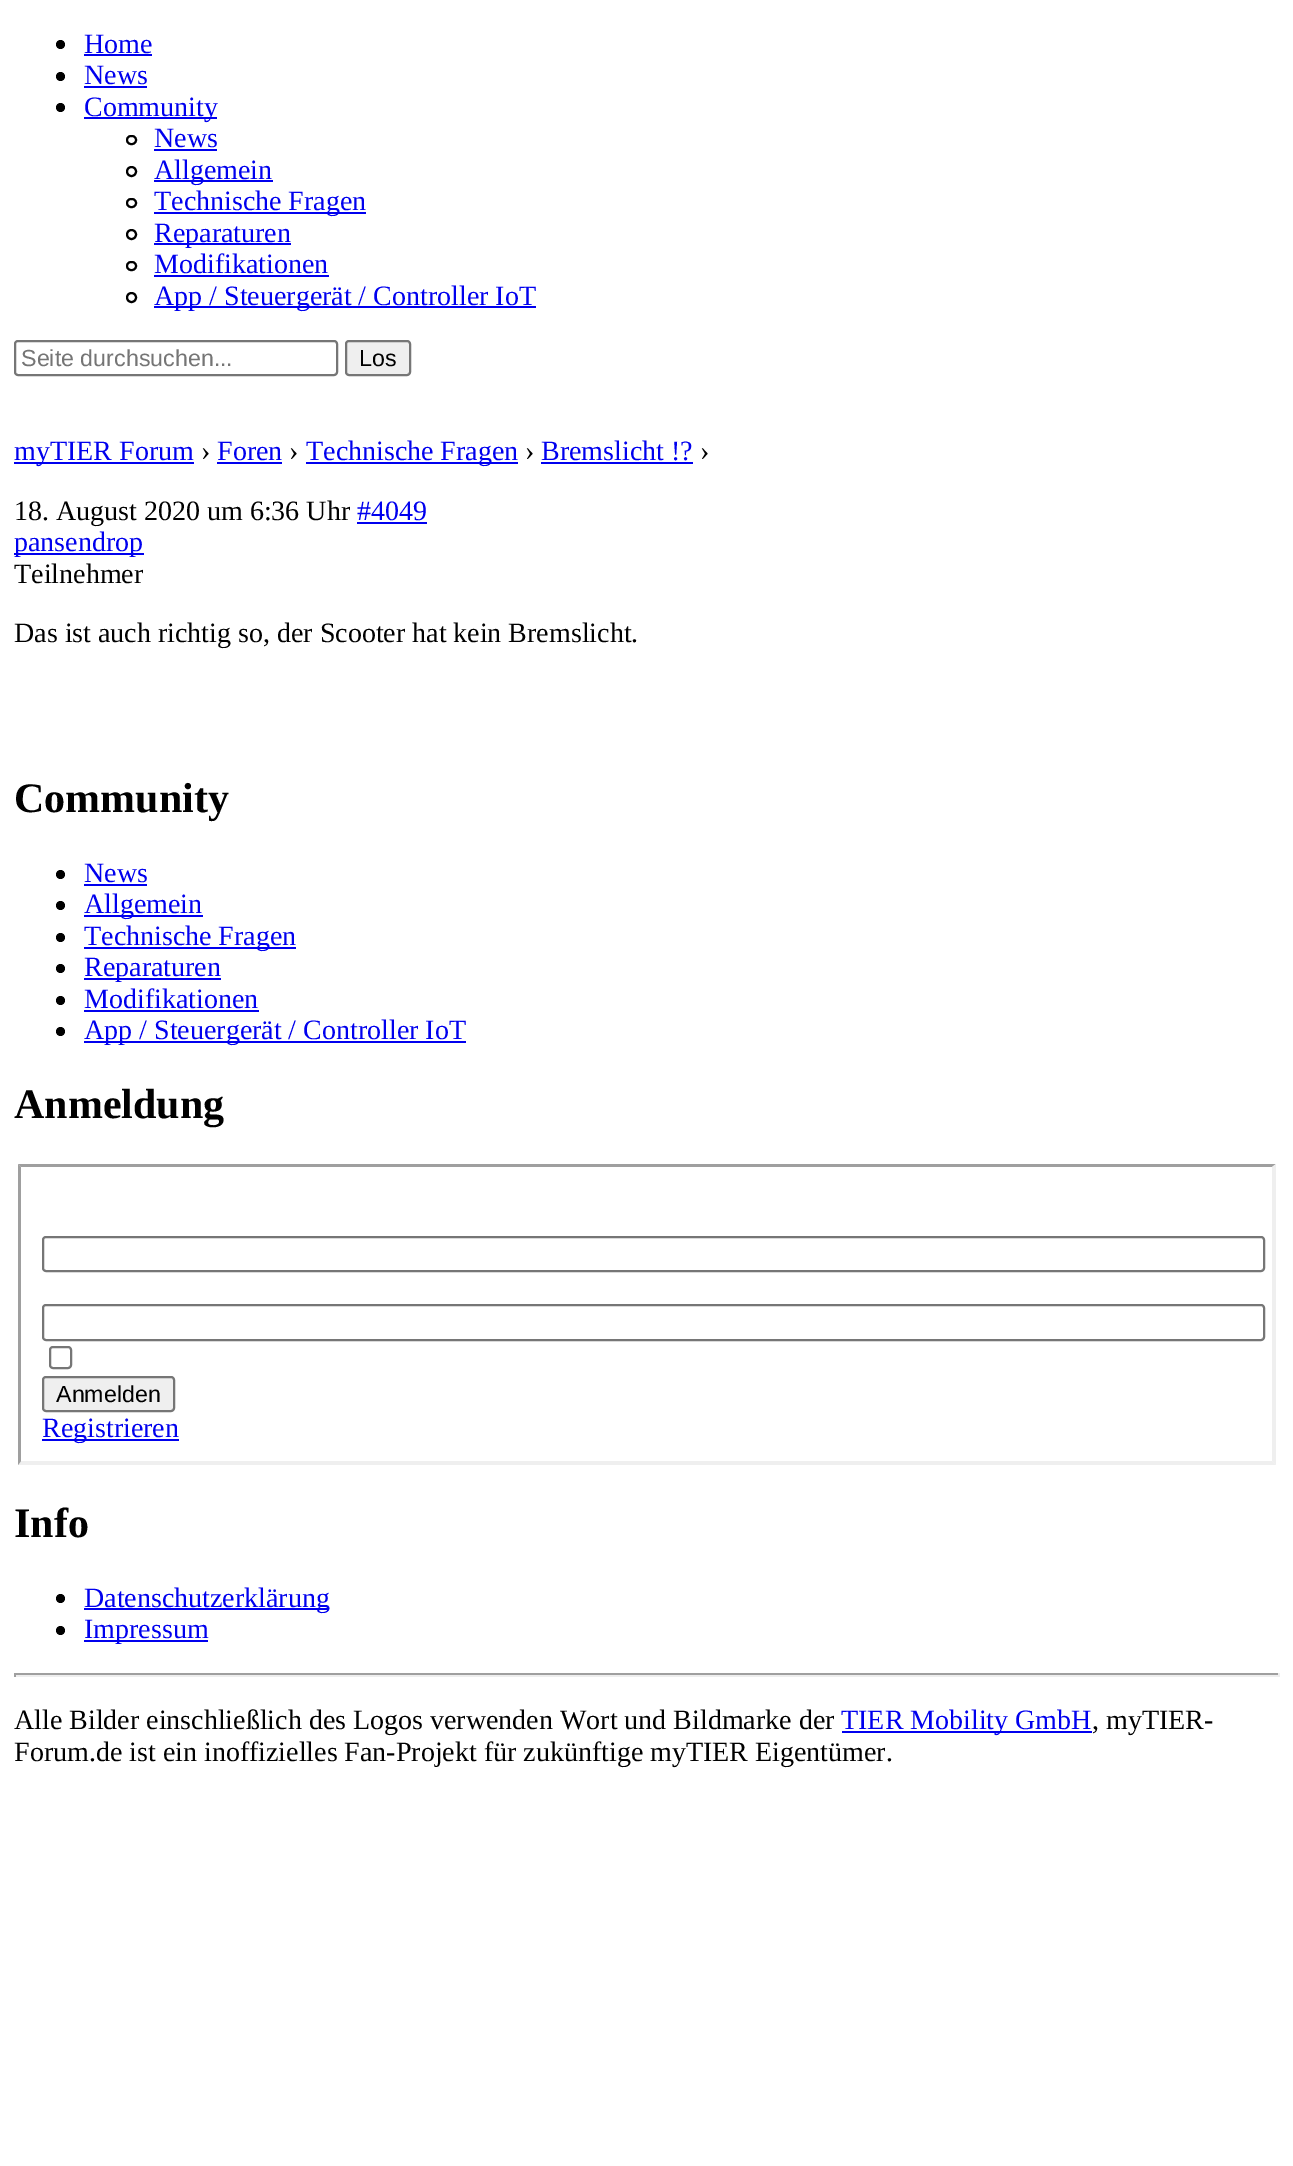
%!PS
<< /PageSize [1293 2166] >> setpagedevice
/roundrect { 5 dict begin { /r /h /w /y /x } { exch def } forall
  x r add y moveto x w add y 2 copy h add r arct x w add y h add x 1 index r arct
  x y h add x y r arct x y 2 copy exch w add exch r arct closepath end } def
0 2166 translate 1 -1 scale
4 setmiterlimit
1 setgray
0 0 1293 2166 rectfill
0 setgray
newpath 60.5 44.5 4.5 0 360 arc closepath fill
/LiberationSerif-Regular [28 0 0 -28 0 0] selectfont
0 0 0.933 setrgbcolor
84 53 moveto (Home) show
84 54 68 2 rectfill
0 setgray
newpath 60.5 76.5 4.5 0 360 arc closepath fill
0 0 0.933 setrgbcolor
84 84 moveto (News) show
84 86 63 2 rectfill
0 setgray
newpath 60.5 107.5 4.5 0 360 arc closepath fill
0 0 0.933 setrgbcolor
84 117 133 2 rectfill
84 116 moveto (Community) show
0 setgray
2 setlinewidth
127 136 9 8 4 roundrect stroke
0 0 0.933 setrgbcolor
154 147 moveto (News) show
154 149 63 2 rectfill
0 setgray
newpath 131.5 171.5 4.5 0 360 arc closepath stroke
0 0 0.933 setrgbcolor
154 180 119 2 rectfill
154 179 moveto (Allgemein) show
0 setgray
127 199 9 8 4 roundrect stroke
0 0 0.933 setrgbcolor
154 212 212 2 rectfill
154 210 moveto (Technische Fragen) show
0 setgray
newpath 131.5 234.5 4.5 0 360 arc closepath stroke
0 0 0.933 setrgbcolor
154 243 137 2 rectfill
154 242 moveto (Reparaturen) show
0 setgray
127 262 9 8 4 roundrect stroke
0 0 0.933 setrgbcolor
154 273 moveto (Modifikationen) show
154 275 175 2 rectfill
0 setgray
newpath 131.5 297.5 4.5 0 360 arc closepath stroke
0 0 0.933 setrgbcolor
154 306 382 2 rectfill
154 305 moveto (App / Steuergerät / Controller IoT) show
0.463 setgray
15 341 322 34 3 roundrect stroke
/LiberationSans-Regular [23.25 0 0 -23.25 0 0] selectfont
0.459 setgray
21 366 moveto (Seite durchsuchen...) show
0.937 setgray
346 341 64 34 3 roundrect gsave fill grestore
0.463 setgray
stroke
0 setgray
359 366 moveto (Los) show
0 0 0.933 setrgbcolor
14 462 180 2 rectfill
/LiberationSerif-Regular [28 0 0 -28 0 0] selectfont
14 460 moveto (myTIER Forum) show
0 setgray
201 460 moveto (›) show
0 0 0.933 setrgbcolor
217 460 moveto (Foren) show
217 462 65 2 rectfill
0 setgray
289 460 moveto (›) show
0 0 0.933 setrgbcolor
306 462 212 2 rectfill
306 460 moveto (Technische Fragen) show
0 setgray
525 460 moveto (›) show
0 0 0.933 setrgbcolor
541 460 moveto (Bremslicht !?) show
541 462 152 2 rectfill
0 setgray
700 460 moveto (›) show
14 520 moveto (18. August 2020 um 6:36 Uhr) show
0 0 0.933 setrgbcolor
357 520 moveto (#4049) show
357 522 70 2 rectfill
14 553 130 2 rectfill
14 551 moveto (pansendrop) show
0 setgray
14 583 moveto (Teilnehmer) show
14 642 moveto (Das ist auch richtig so, der Scooter hat kein Bremslicht.) show
/LiberationSerif-Bold [42 0 0 -42 0 0] selectfont
14 812 moveto (Community) show
newpath 60.5 874.5 4.5 0 360 arc closepath fill
/LiberationSerif-Regular [28 0 0 -28 0 0] selectfont
0 0 0.933 setrgbcolor
84 882 moveto (News) show
84 884 63 2 rectfill
0 setgray
newpath 60.5 905.5 4.5 0 360 arc closepath fill
0 0 0.933 setrgbcolor
84 915 119 2 rectfill
84 913 moveto (Allgemein) show
0 setgray
newpath 60.5 937.5 4.5 0 360 arc closepath fill
0 0 0.933 setrgbcolor
84 947 212 2 rectfill
84 945 moveto (Technische Fragen) show
0 setgray
newpath 60.5 968.5 4.5 0 360 arc closepath fill
0 0 0.933 setrgbcolor
84 978 137 2 rectfill
84 976 moveto (Reparaturen) show
0 setgray
newpath 60.5 1000.5 4.5 0 360 arc closepath fill
0 0 0.933 setrgbcolor
84 1008 moveto (Modifikationen) show
84 1010 175 2 rectfill
0 setgray
newpath 60.5 1031.5 4.5 0 360 arc closepath fill
0 0 0.933 setrgbcolor
84 1041 382 2 rectfill
84 1039 moveto (App / Steuergerät / Controller IoT) show
/LiberationSerif-Bold [42 0 0 -42 0 0] selectfont
0 setgray
14 1118 moveto (Anmeldung) show
0.624 setgray
newpath 18 1164 moveto 1276 1164 lineto 1272 1167 lineto 21 1167 lineto closepath fill
0.937 setgray
newpath 1276 1164 moveto 1276 1465 lineto 1272 1461 lineto 1272 1167 lineto closepath fill
newpath 1276 1465 moveto 18 1465 lineto 21 1461 lineto 1272 1461 lineto closepath fill
0.624 setgray
newpath 18 1465 moveto 18 1164 lineto 21 1167 lineto 21 1461 lineto closepath fill
0.463 setgray
43 1237 1221 34 3 roundrect stroke
43 1305 1221 35 3 roundrect stroke
50 1347 21 21 3 roundrect stroke
0.937 setgray
43 1377 131 34 3 roundrect gsave fill grestore
0.463 setgray
stroke
/LiberationSans-Regular [23.25 0 0 -23.25 0 0] selectfont
0 setgray
56 1402 moveto (Anmelden) show
0 0 0.933 setrgbcolor
42 1439 137 2 rectfill
/LiberationSerif-Regular [28 0 0 -28 0 0] selectfont
42 1437 moveto (Registrieren) show
/LiberationSerif-Bold [42 0 0 -42 0 0] selectfont
0 setgray
14 1537 moveto (Info) show
newpath 60.5 1598.5 4.5 0 360 arc closepath fill
0 0 0.933 setrgbcolor
84 1608 245 2 rectfill
/LiberationSerif-Regular [28 0 0 -28 0 0] selectfont
84 1607 moveto (Datenschutzerklärung) show
0 setgray
newpath 60.5 1630.5 4.5 0 360 arc closepath fill
0 0 0.933 setrgbcolor
84 1640 124 2 rectfill
84 1638 moveto (Impressum) show
0.624 setgray
14 1673 1265 2 rectfill
0.933 setgray
1278 1673 2 4 rectfill
14 1675 1265 2 rectfill
0.624 setgray
14 1673 2 4 rectfill
0 setgray
14 1729 moveto (Alle Bilder einschließlich des Logos verwenden Wort und Bildmarke der) show
0 0 0.933 setrgbcolor
842 1731 250 2 rectfill
841 1729 moveto (TIER Mobility GmbH) show
0 setgray
1092 1729 moveto (, myTIER-) show
14 1761 moveto (Forum.de ist ein inoffizielles Fan-Projekt für zukünftige myTIER Eigentümer.) show
showpage
